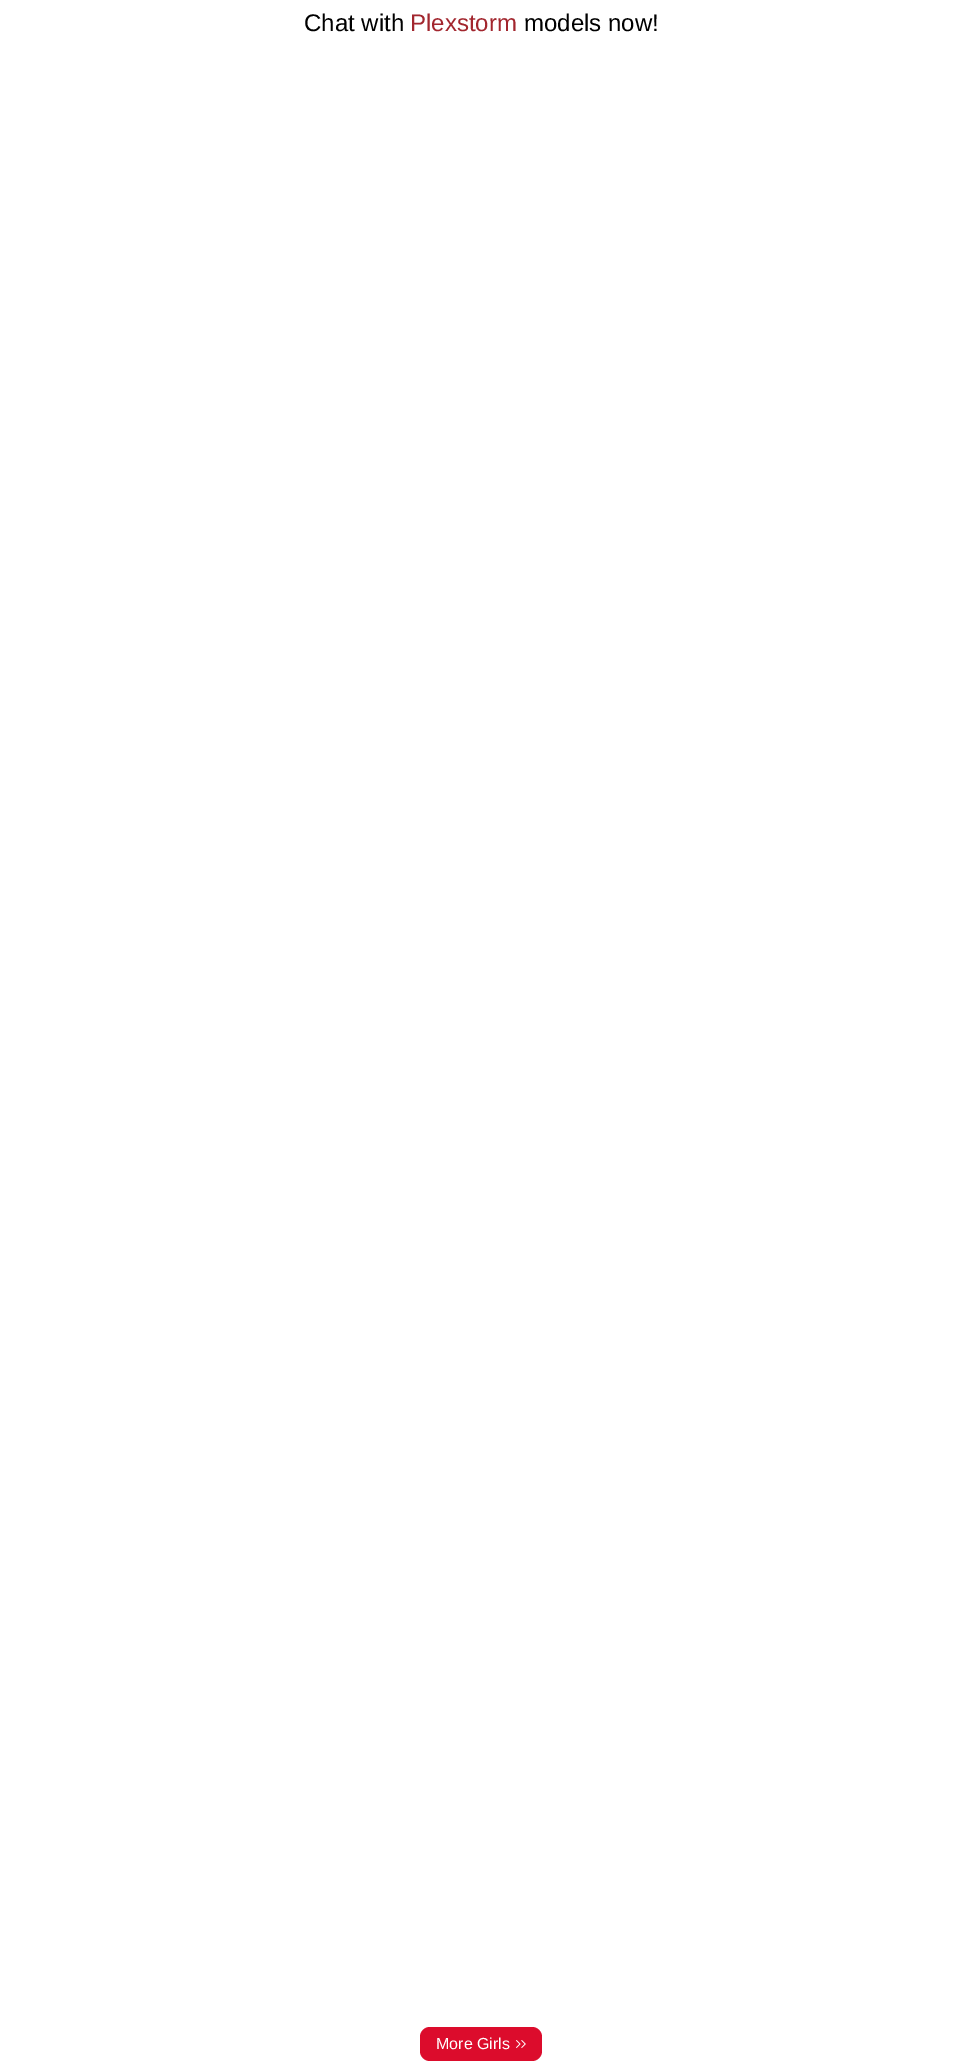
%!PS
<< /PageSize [962 2065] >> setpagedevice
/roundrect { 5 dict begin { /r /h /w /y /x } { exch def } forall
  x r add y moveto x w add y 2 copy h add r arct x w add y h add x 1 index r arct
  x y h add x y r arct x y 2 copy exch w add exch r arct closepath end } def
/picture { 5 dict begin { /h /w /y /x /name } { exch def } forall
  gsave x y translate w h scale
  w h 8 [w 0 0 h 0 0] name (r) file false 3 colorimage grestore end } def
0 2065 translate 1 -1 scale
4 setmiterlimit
1 setgray
0 0 962 2065 rectfill
/LiberationSans-Regular [24 0 0 -24 0 0] selectfont
0 setgray
304 31 moveto (Chat with) show
0.635 0.149 0.18 setrgbcolor
410 31 moveto (Plexstorm) show
0 setgray
524 31 moveto (models now!) show
0.863 0.047 0.173 setrgbcolor
420 2027 122 34 10 roundrect fill
/LiberationSans-Regular [16 0 0 -16 0 0] selectfont
1 setgray
436 2049 moveto (More Girls) show
(img1.rgb) 516 2040 10 8 picture
showpage
